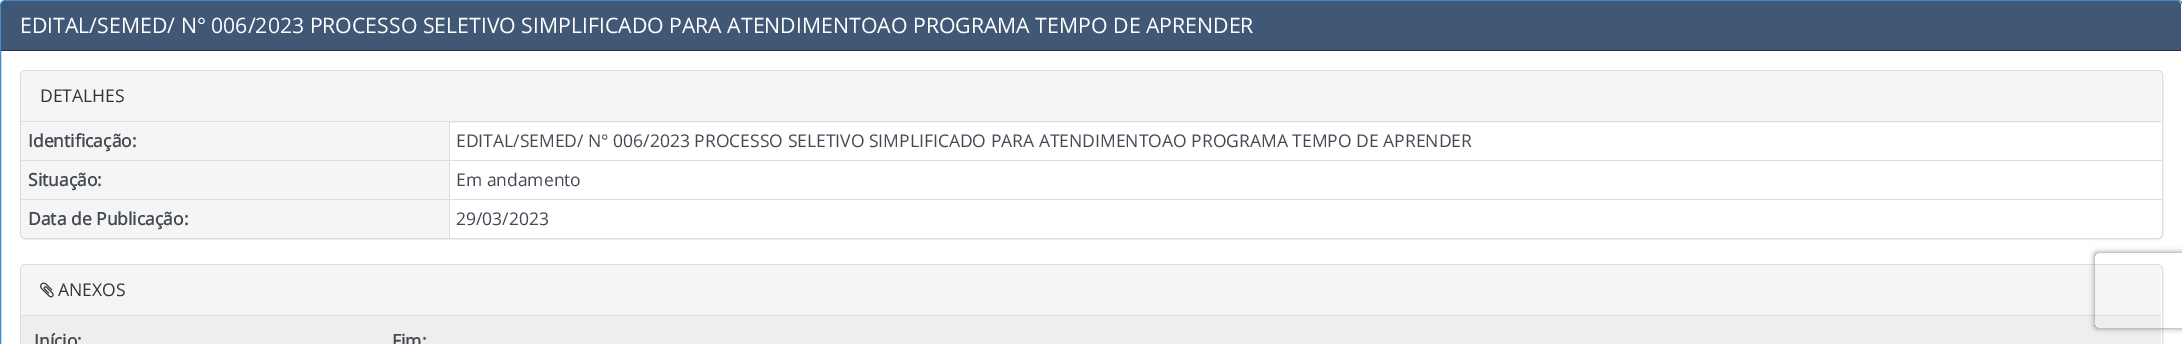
%!PS
<< /PageSize [2182 344] /PageUsesTransparency true >> setpagedevice
/alpha { dup .setfillconstantalpha .setstrokeconstantalpha } def
/roundrect { 5 dict begin { /r /h /w /y /x } { exch def } forall
  x r add y moveto x w add y 2 copy h add r arct x w add y h add x 1 index r arct
  x y h add x y r arct x y 2 copy exch w add exch r arct closepath end } def
/shadow { 12 dict begin { /a /b /q /h /w /y /x } { exch def } forall gsave /was 0 def
  9 -2 -9 { dup b mul 4 div /e exch def 1 sub .425 mul 2.718 exch exp 1 add a .99 .min exch div /now exch def
    1 1 now sub 1 was sub div sub alpha /was now def
    w h .min e 2 mul add 0 gt { x e sub y e sub w e 2 mul add h e 2 mul add
      q e add b .6 mul add w h .min 2 div e add .min 0 .max roundrect fill } if } for grestore end } def
/picture { 5 dict begin { /h /w /y /x /name } { exch def } forall
  gsave x y translate w h scale
  w h 8 [w 0 0 h 0 0] name (r) file false 3 colorimage grestore end } def
0 .pushpdf14devicefilter
0 344 translate 1 -1 scale
4 setmiterlimit
0.98 setgray
0 0 2182 344 rectfill
1 setgray
0.5 0.5 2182 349 4.5 roundrect gsave fill grestore
0.259 0.545 0.792 setrgbcolor
stroke
0.251 0.345 0.459 setrgbcolor
newpath 5 1 moveto 2177 1 lineto 2179 1 2181 3 2181 5 curveto 2181 51 lineto 1 51 lineto 1 5 lineto 1 3 3 1 5 1 curveto closepath fill
0.141 0.196 0.259 setrgbcolor
1 50 2180 1 rectfill
/OpenSans-Regular [21.25 0 0 -21.25 0 0] selectfont
1 setgray
20 33 moveto (EDITAL/SEMED/ N° 006/2023 PROCESSO SELETIVO SIMPLIFICADO PARA ATENDIMENTOAO PROGRAMA TEMPO DE APRENDER) show
0 setgray
20 71 2143 169 5 0.5 0.05 shadow
1 setgray
20.5 70.5 2142 168 4.5 roundrect gsave fill grestore
0.867 setgray
stroke
0.961 setgray
newpath 25 71 moveto 2157 71 lineto 2159 71 2161 73 2161 75 curveto 2161 123 lineto 21 123 lineto 21 75 lineto 21 73 23 71 25 71 curveto closepath fill
0.867 setgray
21 121 2140 1 rectfill
/OpenSans-Regular [17.5 0 0 -17.5 0 0] selectfont
0.2 setgray
40 102 moveto (DETALHES) show
0.961 setgray
21 123 428 37 rectfill
/OpenSans-Bold [17.5 0 0 -17.5 0 0] selectfont
0.263 0.29 0.329 setrgbcolor
28 147 moveto (Identificação:) show
0.867 setgray
449 160 1714 1 rectfill
0.961 setgray
newpath 21 199 moveto 449 199 lineto 449 238 lineto 25 238 lineto 23 238 21 236 21 234 curveto closepath fill
0.867 setgray
449 199 1714 1 rectfill
449 199 1 39 rectfill
21 199 429 1 rectfill
449 160 1 40 rectfill
21 160 429 1 rectfill
449 121 1 40 rectfill
/OpenSans-Regular [17.5 0 0 -17.5 0 0] selectfont
0.263 0.29 0.329 setrgbcolor
456 147 moveto (EDITAL/SEMED/ N° 006/2023 PROCESSO SELETIVO SIMPLIFICADO PARA ATENDIMENTOAO PROGRAMA TEMPO DE APRENDER) show
0.961 setgray
21 161 428 38 rectfill
/OpenSans-Bold [17.5 0 0 -17.5 0 0] selectfont
0.263 0.29 0.329 setrgbcolor
28 186 moveto (Situação:) show
/OpenSans-Regular [17.5 0 0 -17.5 0 0] selectfont
456 186 moveto (Em andamento) show
/OpenSans-Bold [17.5 0 0 -17.5 0 0] selectfont
28 225 moveto (Data de Publicação:) show
/OpenSans-Regular [17.5 0 0 -17.5 0 0] selectfont
456 225 moveto (29/03/2023) show
0.867 setgray
20.5 264.5 2142 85 4.5 roundrect stroke
0.961 setgray
newpath 25 265 moveto 2157 265 lineto 2159 265 2161 267 2161 269 curveto 2161 316 lineto 21 316 lineto 21 269 lineto 21 267 23 265 25 265 curveto closepath fill
0.867 setgray
21 315 2140 1 rectfill
(img1.rgb) 40 282 14 16 picture
0.2 setgray
58 296 moveto (ANEXOS) show
0.933 setgray
21 316 2140 28 rectfill
/OpenSans-Bold [17.5 0 0 -17.5 0 0] selectfont
0.263 0.29 0.329 setrgbcolor
34 347 moveto (Início:) show
392 347 moveto (Fim:) show
gsave
newpath 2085 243 moveto 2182 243 lineto 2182 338 lineto 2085 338 lineto closepath 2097.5 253 moveto 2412.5 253 lineto 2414 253 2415 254 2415 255.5 curveto 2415 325.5 lineto 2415 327 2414 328 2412.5 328 curveto 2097.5 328 lineto 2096 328 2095 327 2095 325.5 curveto 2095 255.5 lineto 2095 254 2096 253 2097.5 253 curveto closepath eoclip newpath
0.502 setgray
2095 253 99 75 2.5 3 1 shadow
grestore
.poppdf14devicefilter showpage
